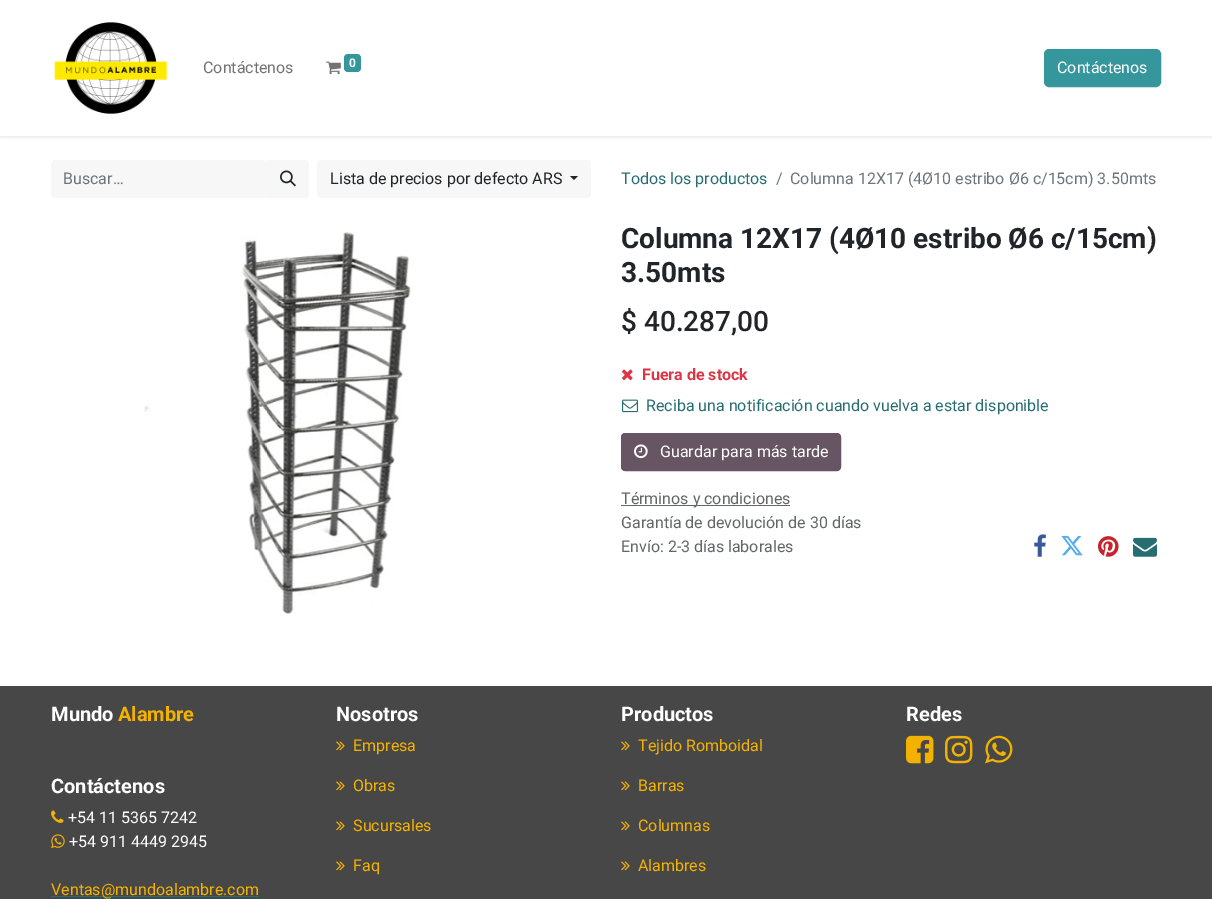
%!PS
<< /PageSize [1212 899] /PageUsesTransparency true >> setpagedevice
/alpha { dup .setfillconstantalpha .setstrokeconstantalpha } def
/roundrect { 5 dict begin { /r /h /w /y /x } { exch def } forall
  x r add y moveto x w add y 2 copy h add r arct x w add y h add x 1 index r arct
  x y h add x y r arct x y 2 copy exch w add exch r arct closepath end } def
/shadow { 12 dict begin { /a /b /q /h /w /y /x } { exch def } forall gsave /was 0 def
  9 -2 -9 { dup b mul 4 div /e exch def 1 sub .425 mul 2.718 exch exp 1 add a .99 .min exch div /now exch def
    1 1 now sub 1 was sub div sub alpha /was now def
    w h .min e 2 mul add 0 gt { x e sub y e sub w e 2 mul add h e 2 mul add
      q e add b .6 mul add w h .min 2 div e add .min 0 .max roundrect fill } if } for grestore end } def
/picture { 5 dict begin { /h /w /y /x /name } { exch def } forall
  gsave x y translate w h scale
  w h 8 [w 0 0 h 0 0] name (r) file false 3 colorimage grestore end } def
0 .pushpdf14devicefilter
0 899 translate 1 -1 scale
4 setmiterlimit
1 setgray
0 0 1212 899 rectfill
gsave
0 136 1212 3 rectclip
0 setgray
0 2 1212 136 0 2 0.07 shadow
grestore
(img1.rgb) 54 22 114 92 picture
/Roboto-Regular [16 0 0 -16 0 0] selectfont
0.451 setgray
203 73 moveto (Contáctenos) show
(img2.rgb) 326 61 15 14 picture
0.208 0.592 0.612 setrgbcolor
344 54 17 18 4 roundrect fill
/Roboto-Bold [12 0 0 -12 0 0] selectfont
1 setgray
349 67 moveto (0) show
0.208 0.592 0.612 setrgbcolor
1044.5 49.5 116 37 4.5 roundrect gsave fill grestore
stroke
/Roboto-Regular [16 0 0 -16 0 0] selectfont
1 setgray
1057 73 moveto (Contáctenos) show
0.969 setgray
51 160 217 38 5 roundrect fill
0.424 0.459 0.49 setrgbcolor
63 184 moveto (Buscar…) show
0.969 setgray
newpath 267 160 moveto 305 160 lineto 307 160 309 162 309 164 curveto 309 194 lineto 309 196 307 198 305 198 curveto 267 198 lineto closepath fill
(img3.rgb) 280 170 16 17 picture
317 160 274 38 4 roundrect fill
0.129 0.145 0.161 setrgbcolor
330 184 moveto (Lista de precios por defecto ARS) show
newpath 570 176 moveto 578 176 lineto 574 180 lineto closepath fill
0.153 0.431 0.447 setrgbcolor
621 184 moveto (Todos los productos) show
0.424 0.459 0.49 setrgbcolor
776 184 moveto (/) show
790 184 moveto (Columna 12X17 \(4Ø10 estribo Ø6 c/15cm\) 3.50mts) show
(img4.rgb) 144 232 270 382 picture
/Roboto-Bold [28 0 0 -28 0 0] selectfont
0.129 0.145 0.161 setrgbcolor
621 248 moveto (Columna 12X17 \(4Ø10 estribo Ø6 c/15cm\)) show
621 282 moveto (3.50mts) show
/Roboto-Medium [28 0 0 -28 0 0] selectfont
621 331 moveto ($ 40.287,00) show
(img5.rgb) 622 369 11 12 picture
/Roboto-Bold [16 0 0 -16 0 0] selectfont
0.863 0.208 0.271 setrgbcolor
642 380 moveto (Fuera de stock) show
(img6.rgb) 622 399 16 14 picture
/Roboto-Regular [16 0 0 -16 0 0] selectfont
0.153 0.431 0.447 setrgbcolor
646 411 moveto (Reciba una notificación cuando vuelva a estar disponible) show
0.408 0.333 0.388 setrgbcolor
621.5 433.5 219 37 3.5 roundrect gsave fill grestore
stroke
(img7.rgb) 634 444 14 15 picture
1 setgray
660 457 moveto (Guardar para más tarde) show
0.392 0.4 0.412 setrgbcolor
621 505 169 1 rectfill
0.388 0.4 0.412 setrgbcolor
621 504 moveto (Términos y condiciones) show
621 528 moveto (Garantía de devolución de 30 días) show
621 552 moveto (Envío: 2-3 días laborales) show
(img8.rgb) 1034 534 12 23 picture
(img9.rgb) 1061 535 22 21 picture
(img10.rgb) 1098 536 21 21 picture
(img11.rgb) 1133 537 24 20 picture
0.282 0.278 0.282 setrgbcolor
0 686 1212 213 rectfill
/Roboto-Bold [20 0 0 -20 0 0] selectfont
1 setgray
51 721 moveto (Mundo) show
0.953 0.698 0 setrgbcolor
118 721 moveto (Alambre) show
1 setgray
51 793 moveto (Contáctenos) show
(img12.rgb) 51 810 13 13 picture
/Roboto-Regular [16 0 0 -16 0 0] selectfont
68 823 moveto (+54 11 5365 7242) show
(img13.rgb) 51 834 14 15 picture
69 847 moveto (+54 911 4449 2945) show
0.153 0.431 0.447 setrgbcolor
51 896 208 1 rectfill
0.953 0.698 0 setrgbcolor
51 895 moveto (Ventas@mundoalambre.com) show
/Roboto-Bold [20 0 0 -20 0 0] selectfont
1 setgray
336 721 moveto (Nosotros) show
(img14.rgb) 336 741 9 10 picture
/Roboto-Regular [16 0 0 -16 0 0] selectfont
0.953 0.698 0 setrgbcolor
353 751 moveto (Empresa) show
(img14.rgb) 336 781 9 10 picture
353 791 moveto (Obras) show
(img14.rgb) 336 821 9 10 picture
353 831 moveto (Sucursales) show
(img14.rgb) 336 861 9 10 picture
353 871 moveto (Faq) show
/Roboto-Bold [20 0 0 -20 0 0] selectfont
1 setgray
621 721 moveto (Productos) show
(img14.rgb) 621 741 9 10 picture
/Roboto-Regular [16 0 0 -16 0 0] selectfont
0.953 0.698 0 setrgbcolor
638 751 moveto (Tejido Romboidal) show
(img14.rgb) 621 781 9 10 picture
638 791 moveto (Barras) show
(img14.rgb) 621 821 9 10 picture
638 831 moveto (Columnas) show
(img14.rgb) 621 861 9 10 picture
638 871 moveto (Alambres) show
/Roboto-Bold [20 0 0 -20 0 0] selectfont
1 setgray
906 721 moveto (Redes) show
(img15.rgb) 906 735 28 29 picture
(img16.rgb) 945 735 28 29 picture
(img17.rgb) 985 735 28 29 picture
.poppdf14devicefilter showpage
